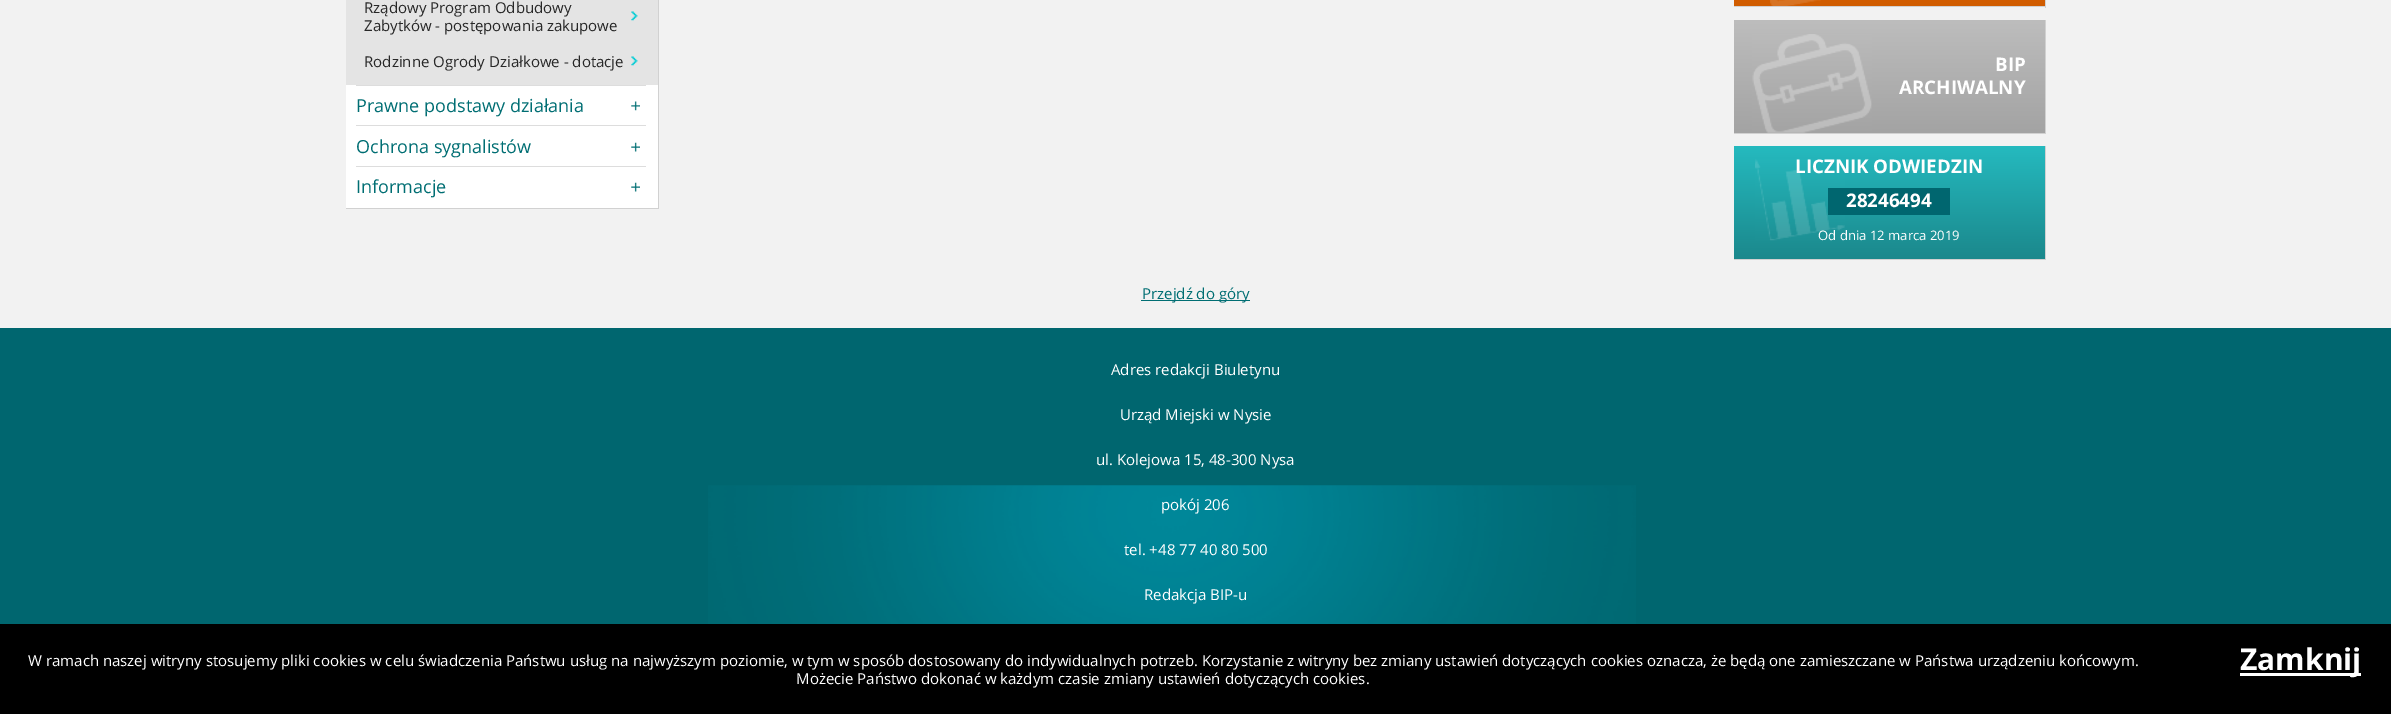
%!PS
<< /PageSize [2391 714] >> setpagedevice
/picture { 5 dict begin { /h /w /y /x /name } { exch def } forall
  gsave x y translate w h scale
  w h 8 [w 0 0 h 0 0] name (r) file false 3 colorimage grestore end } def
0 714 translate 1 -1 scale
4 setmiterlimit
0.949 setgray
0 0 2391 714 rectfill
1 setgray
346 85 312 123 rectfill
0.82 setgray
658 0 1 209 rectfill
346 208 313 1 rectfill
0.894 setgray
346 0 312 85 rectfill
(img1.rgb) 631 11 7 10 picture
/OpenSans-Regular [15 0 0 -15 0 0] selectfont
0.157 setgray
364 13 moveto (Rządowy Program Odbudowy) show
364 31 moveto (Zabytków - postępowania zakupowe) show
(img1.rgb) 631 56 7 10 picture
364 67 moveto (Rodzinne Ogrody Działkowe - dotacje) show
(img2.rgb) 631 101 9 10 picture
0.867 setgray
356 85 290 1 rectfill
/OpenSans-Regular [18 0 0 -18 0 0] selectfont
0 0.431 0.451 setrgbcolor
356 112 moveto (Prawne podstawy działania) show
(img3.rgb) 631 142 9 10 picture
0.867 setgray
356 125 290 1 rectfill
0 0.431 0.451 setrgbcolor
356 153 moveto (Ochrona sygnalistów) show
(img3.rgb) 631 182 9 10 picture
0.867 setgray
356 166 290 1 rectfill
0 0.431 0.451 setrgbcolor
356 193 moveto (Informacje) show
gsave newpath 1734 0 moveto 2045 0 lineto 2045 6 lineto 1734 6 lineto closepath clip newpath
<< /ShadingType 2 /ColorSpace /DeviceRGB /Coords [1889 -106 1889 6.3] /Extend [true true] /Function << /FunctionType 2 /Domain [0 1] /C0 [0.953 0.424 0] /C1 [0.816 0.361 0] /N 1 >> >> shfill grestore
0.82 setgray
2045 0 1 8 rectfill
1734 6 312 1 rectfill
(img4.rgb) 1770 0 51 6 picture
gsave newpath 1734 20 moveto 2045 20 lineto 2045 133 lineto 1734 133 lineto closepath clip newpath
<< /ShadingType 2 /ColorSpace /DeviceRGB /Coords [1889 20 1889 133] /Extend [true true] /Function << /FunctionType 2 /Domain [0 1] /C0 [0.741 0.741 0.741] /C1 [0.639 0.639 0.639] /N 1 >> >> shfill grestore
2045 20 1 114 rectfill
1734 133 312 1 rectfill
(img5.rgb) 1752 34 120 99 picture
/OpenSans-Bold [18.75 0 0 -18.75 0 0] selectfont
1 setgray
1995 71 moveto (BIP) show
1899 94 moveto (ARCHIWALNY) show
gsave newpath 1734 146 moveto 2045 146 lineto 2045 259 lineto 1734 259 lineto closepath clip newpath
<< /ShadingType 2 /ColorSpace /DeviceRGB /Coords [1889 146 1889 259] /Extend [true true] /Function << /FunctionType 2 /Domain [0 1] /C0 [0.145 0.729 0.749] /C1 [0.106 0.533 0.549] /N 1 >> >> shfill grestore
0.82 setgray
2045 146 1 114 rectfill
1734 259 312 1 rectfill
(img6.rgb) 1755 159 90 82 picture
1 setgray
1795 173 moveto (LICZNIK ODWIEDZIN) show
0 0.4 0.435 setrgbcolor
1828 188 122 27 rectfill
1 setgray
1846 207 moveto (28246494) show
/OpenSans-Regular [13.1 0 0 -13.1 0 0] selectfont
1818 240 moveto (Od dnia 12 marca 2019) show
0 0.431 0.451 setrgbcolor
1141 300 109 1 rectfill
/OpenSans-Regular [15 0 0 -15 0 0] selectfont
1142 299 moveto (Przejdź do góry) show
0 0.4 0.435 setrgbcolor
0 328 2391 296 rectfill
(img7.rgb) 708 485 928 139 picture
1 setgray
1111 375 moveto (Adres redakcji Biuletynu) show
1120 420 moveto (Urząd Miejski w Nysie) show
1096 465 moveto (ul. Kolejowa 15, 48-300 Nysa) show
1161 510 moveto (pokój 206) show
1124 555 moveto (tel. +48 77 40 80 500) show
1144 600 moveto (Redakcja BIP-u) show
0 setgray
0 624 2391 90 rectfill
1 setgray
28 666 moveto (W ramach naszej witryny stosujemy pliki cookies w celu świadczenia Państwu usług na najwyższym poziomie, w tym w sposób dostosowany do indywidualnych potrzeb. Korzystanie z witryny bez zmiany ustawień dotyczących cookies oznacza, że będą one zamieszczane w Państwa urządzeniu końcowym.) show
796 684 moveto (Możecie Państwo dokonać w każdym czasie zmiany ustawień dotyczących cookies.) show
2240 673 121 3 rectfill
/OpenSans-Bold [30 0 0 -30 0 0] selectfont
2240 670 moveto (Zamknij) show
showpage
